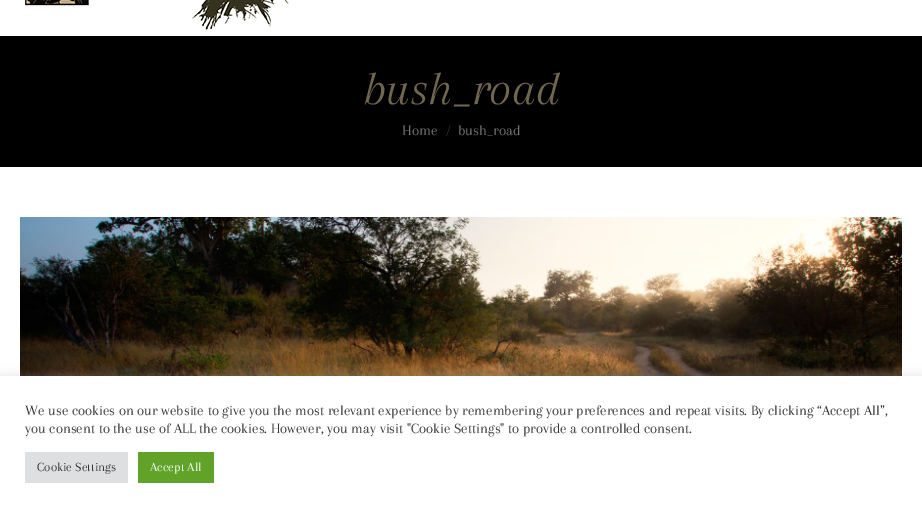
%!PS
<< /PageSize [922 513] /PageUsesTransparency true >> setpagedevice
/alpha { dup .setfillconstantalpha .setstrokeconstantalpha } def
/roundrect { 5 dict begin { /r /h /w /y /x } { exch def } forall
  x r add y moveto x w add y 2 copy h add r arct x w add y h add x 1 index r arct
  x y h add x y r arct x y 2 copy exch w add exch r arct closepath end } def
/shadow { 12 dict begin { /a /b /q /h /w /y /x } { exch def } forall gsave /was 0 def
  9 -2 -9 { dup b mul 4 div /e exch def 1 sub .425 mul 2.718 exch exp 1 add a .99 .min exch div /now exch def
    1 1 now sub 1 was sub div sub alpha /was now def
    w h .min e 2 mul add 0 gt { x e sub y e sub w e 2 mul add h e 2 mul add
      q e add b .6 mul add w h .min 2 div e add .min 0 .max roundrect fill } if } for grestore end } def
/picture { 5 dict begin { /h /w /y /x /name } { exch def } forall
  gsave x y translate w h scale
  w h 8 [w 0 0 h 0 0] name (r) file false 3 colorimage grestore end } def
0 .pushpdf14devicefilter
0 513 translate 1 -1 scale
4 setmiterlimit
1 setgray
0 0 922 513 rectfill
(img1.rgb) 25 0 264 30 picture
0 setgray
0 36 922 131 rectfill
/Arapey-Italic [48 0 0 -48 0 0] selectfont
0.443 0.404 0.314 setrgbcolor
363 104 moveto (bush_road) show
/Arapey-Regular [15 0 0 -15 0 0] selectfont
0.455 setgray
402 135 moveto (Home) show
0.227 setgray
446 135 moveto (/) show
0.455 setgray
458 135 moveto (bush_road) show
(img2.rgb) 20 217 882 159 picture
0.675 0.671 0.671 setrgbcolor
0 375 922 137 0 5 0.3 shadow
1 setgray
0 376 922 137 rectfill
/Arapey-Regular [14.67 0 0 -14.67 0 0] selectfont
0.2 setgray
25 415 moveto (We use cookies on our website to give you the most relevant experience by remembering your preferences and repeat visits. By clicking “Accept All”,) show
25 433 moveto (you consent to the use of ALL the cookies. However, you may visit "Cookie Settings" to provide a controlled consent.) show
0.871 0.875 0.878 setrgbcolor
25 452 103 31 rectfill
/Arapey-Regular [13 0 0 -13 0 0] selectfont
0.2 setgray
37 471 moveto (Cookie Settings) show
0.38 0.635 0.161 setrgbcolor
138 452 76 31 rectfill
1 setgray
150 471 moveto (Accept All) show
.poppdf14devicefilter showpage
